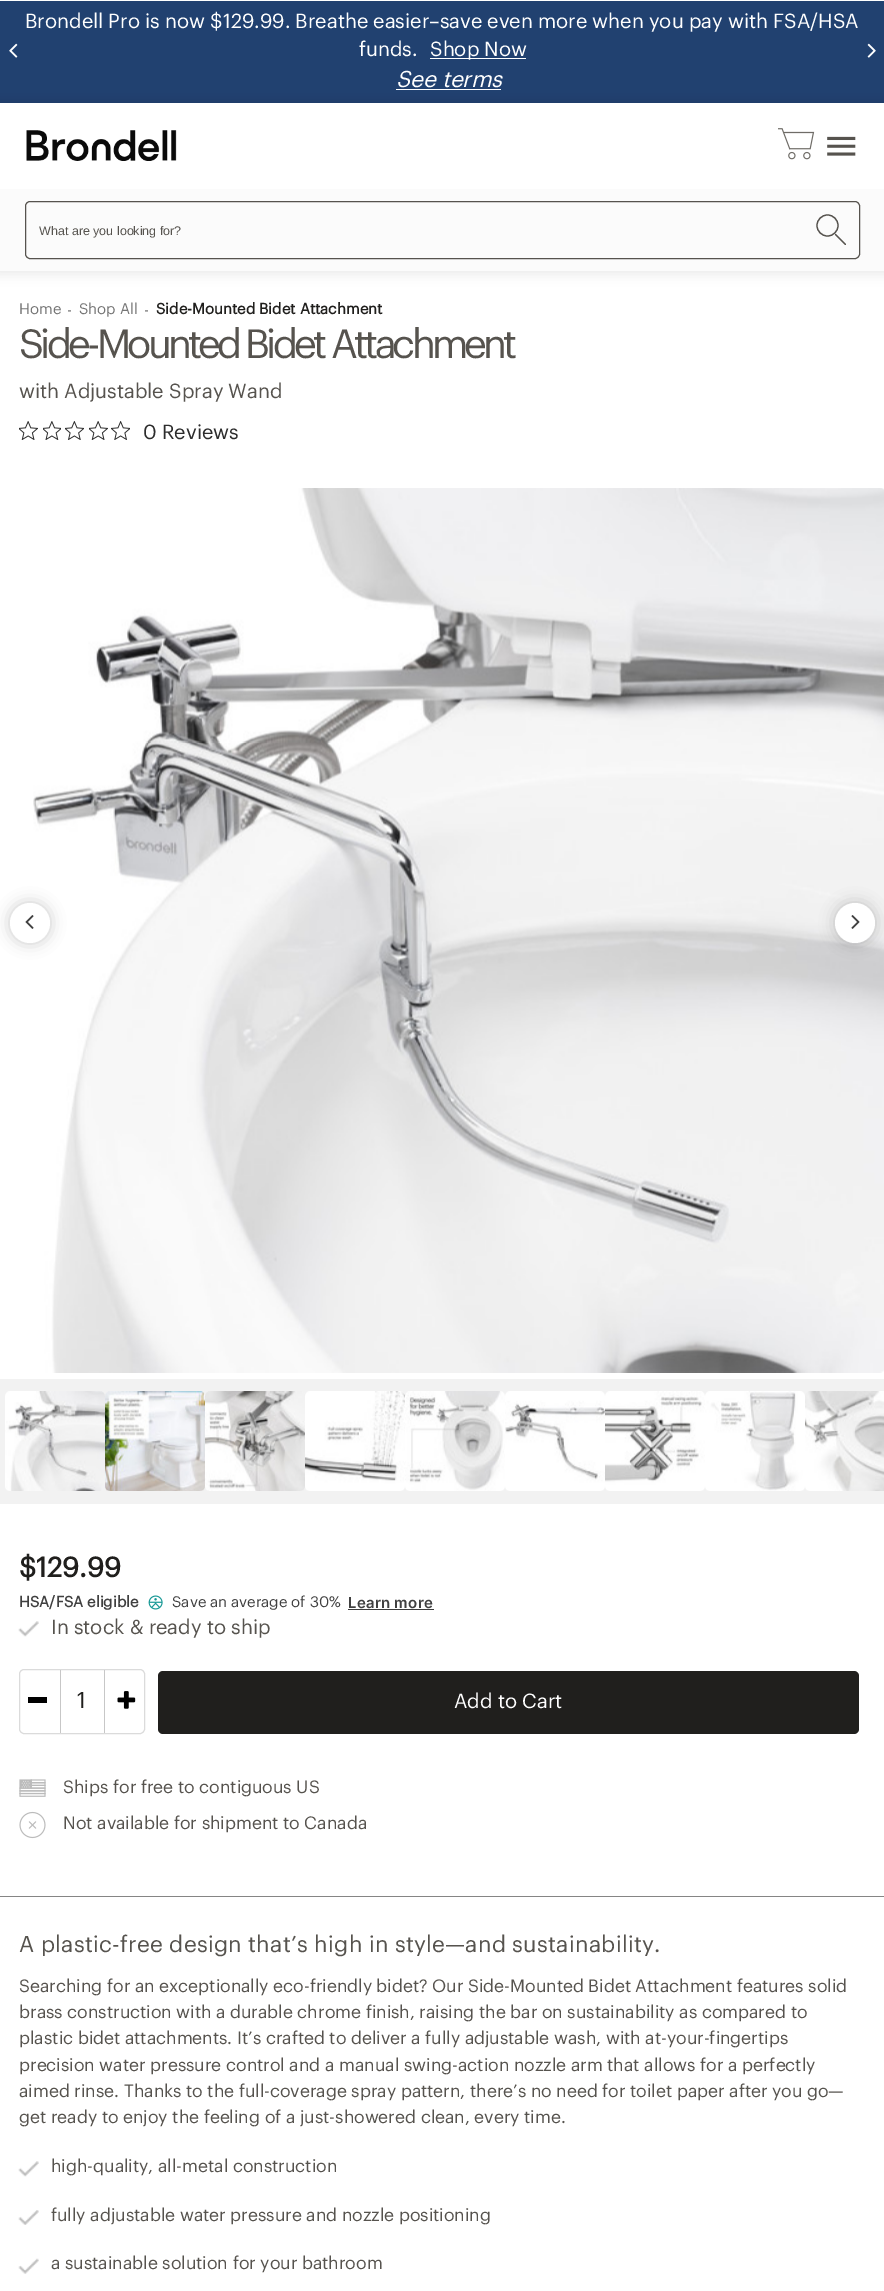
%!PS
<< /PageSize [884 2291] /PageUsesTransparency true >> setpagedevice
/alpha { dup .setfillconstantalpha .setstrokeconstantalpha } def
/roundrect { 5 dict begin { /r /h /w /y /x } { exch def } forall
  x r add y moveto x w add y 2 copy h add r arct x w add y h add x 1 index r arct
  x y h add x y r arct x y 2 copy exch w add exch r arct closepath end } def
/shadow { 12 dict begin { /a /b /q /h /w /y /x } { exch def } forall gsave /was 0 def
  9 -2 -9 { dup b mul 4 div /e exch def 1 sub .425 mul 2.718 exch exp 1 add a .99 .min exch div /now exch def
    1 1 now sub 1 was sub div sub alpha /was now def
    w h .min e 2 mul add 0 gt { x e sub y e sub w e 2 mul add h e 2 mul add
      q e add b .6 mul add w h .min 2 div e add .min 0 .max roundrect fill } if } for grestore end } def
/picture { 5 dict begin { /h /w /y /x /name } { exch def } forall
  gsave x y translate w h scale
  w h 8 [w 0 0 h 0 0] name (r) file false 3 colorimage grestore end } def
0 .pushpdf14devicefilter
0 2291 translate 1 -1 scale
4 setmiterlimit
1 setgray
0 0 884 2291 rectfill
0.129 0.255 0.439 setrgbcolor
0 1 884 102 rectfill
(img1.rgb) 9 43 9 15 picture
/Graphik-Regular [20 0 0 -20 0 0] selectfont
1 setgray
25 28 moveto (Brondell Pro is now $129.99. Breathe easier–save even more when you pay with FSA/HSA) show
359 56 moveto (funds.) show
430 58 96 1 rectfill
430 56 moveto (Shop Now) show
/Graphik-Italic [22.5 0 0 -22.5 0 0] selectfont
396 87 moveto (See terms) show
396 89 105 1 rectfill
(img2.rgb) 867 43 9 15 picture
0 setgray
-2 100 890 174 0 5.5 0.08 shadow
1 setgray
0 103 884 86 rectfill
(img3.rgb) 26 130 151 31 picture
(img4.rgb) 778 128 37 32 picture
(img5.rgb) 827 136 29 20 picture
0.984 setgray
0 189 884 82 rectfill
0.337 0.325 0.306 setrgbcolor
25.5 201.5 834 57 4.5 roundrect stroke
/LiberationSans-Regular [12.5 0 0 -12.5 0 0] selectfont
39 235 moveto (What are you looking for?) show
1.2 setlinewidth
newpath 827.5 225.5 10.5 0 360 arc closepath stroke
1 setlinecap
newpath 835.5 234.5 moveto 845.5 244.5 lineto stroke
/Graphik-Regular [15 0 0 -15 0 0] selectfont
0.459 setgray
19 314 moveto (Home) show
67 315 moveto (-) show
79 314 moveto (Shop All) show
144 315 moveto (-) show
/Graphik-Bold [15 0 0 -15 0 0] selectfont
0.125 0.122 0.114 setrgbcolor
156 314 moveto (Side-Mounted Bidet Attachment) show
/Graphik-Regular [40 0 0 -40 0 0] selectfont
0.337 0.325 0.306 setrgbcolor
19 358 moveto -3.75 0 (Side-Mounted Bidet Attachment) ashow
/Graphik-Regular [20 0 0 -20 0 0] selectfont
19 398 moveto (with Adjustable Spray Wand) show
(img6.rgb) 19 421 19 19 picture
(img7.rgb) 43 421 18 19 picture
(img8.rgb) 65 421 19 19 picture
(img6.rgb) 89 421 19 19 picture
(img9.rgb) 111 421 19 19 picture
0.173 setgray
143 439 moveto (0 Reviews) show
(img10.rgb) 33 488 851 885 picture
0.949 setgray
0 1379 884 125 rectfill
0 setgray
10 903 40 40 20 7.5 0.2 shadow
1 setgray
newpath 30 923 20 0 360 arc closepath fill
(img11.rgb) 25 915 9 14 picture
0 setgray
835 903 40 40 20 7.5 0.2 shadow
1 setgray
newpath 855 923 20 0 360 arc closepath fill
(img12.rgb) 851 915 9 14 picture
(img13.rgb) 5 1391 100 100 picture
(img14.rgb) 105 1391 100 100 picture
(img15.rgb) 205 1391 100 100 picture
(img16.rgb) 305 1391 100 100 picture
(img17.rgb) 405 1391 100 100 picture
(img18.rgb) 505 1391 100 100 picture
(img19.rgb) 605 1391 100 100 picture
(img20.rgb) 705 1391 100 100 picture
(img21.rgb) 805 1391 79 100 picture
/Graphik-Bold [27.5 0 0 -27.5 0 0] selectfont
0.125 0.122 0.114 setrgbcolor
19 1577 moveto ($129.99) show
/Graphik-Bold [15 0 0 -15 0 0] selectfont
0.251 setgray
19 1607 moveto (HSA/FSA eligible) show
(img22.rgb) 148 1595 15 15 picture
/Graphik-Regular [15 0 0 -15 0 0] selectfont
172 1607 moveto (Save an average of 30%) show
/Inter-SemiBold [15 0 0 -15 0 0] selectfont
348 1608 moveto 0.25 0 (Learn more) ashow
0.235 setgray
348 1609 86 1 rectfill
(img23.rgb) 18 1621 21 16 picture
/Graphik-Regular [20 0 0 -20 0 0] selectfont
0.337 0.325 0.306 setrgbcolor
51 1634 moveto (In stock & ready to ship) show
0.859 setgray
1 setlinewidth
0 setlinecap
19.5 1669.5 125 64 4.5 roundrect stroke
0.78 setgray
60 1670 1 63 rectfill
0 setgray
28 1697 19 6 rectfill
/Graphik-Regular [22.5 0 0 -22.5 0 0] selectfont
0.125 0.122 0.114 setrgbcolor
77 1708 moveto (1) show
0.78 setgray
104 1670 1 63 rectfill
(img24.rgb) 117 1691 19 18 picture
0.125 0.122 0.114 setrgbcolor
158 1671 701 63 5 roundrect fill
/Graphik-Regular [20 0 0 -20 0 0] selectfont
1 setgray
454 1708 moveto (Add to Cart) show
(img25.rgb) 19 1779 27 18 picture
/Graphik-Regular [17.5 0 0 -17.5 0 0] selectfont
0.337 0.325 0.306 setrgbcolor
63 1793 moveto (Ships for free to contiguous US) show
(img26.rgb) 19 1811 27 28 picture
63 1829 moveto (Not available for shipment to Canada) show
0.522 setgray
0 1896 884 1 rectfill
/Graphik-Regular [22.5 0 0 -22.5 0 0] selectfont
0.337 0.325 0.306 setrgbcolor
19 1952 moveto 0.3 0 (A plastic-free design that’s high in style—and sustainability.) ashow
/Graphik-Regular [17.5 0 0 -17.5 0 0] selectfont
19 1992 moveto (Searching for an exceptionally eco-friendly bidet? Our Side-Mounted Bidet Attachment features solid) show
19 2018 moveto (brass construction with a durable chrome finish, raising the bar on sustainability as compared to) show
19 2044 moveto (plastic bidet attachments. It’s crafted to deliver a fully adjustable wash, with at-your-fingertips) show
19 2071 moveto (precision water pressure control and a manual swing-action nozzle arm that allows for a perfectly) show
19 2097 moveto (aimed rinse. Thanks to the full-coverage spray pattern, there’s no need for toilet paper after you go—) show
19 2123 moveto (get ready to enjoy the feeling of a just-showered clean, every time.) show
(img23.rgb) 18 2161 21 16 picture
51 2172 moveto (high-quality, all-metal construction) show
(img27.rgb) 18 2210 21 15 picture
51 2221 moveto (fully adjustable water pressure and nozzle positioning) show
(img28.rgb) 18 2258 21 16 picture
51 2269 moveto (a sustainable solution for your bathroom) show
.poppdf14devicefilter showpage
